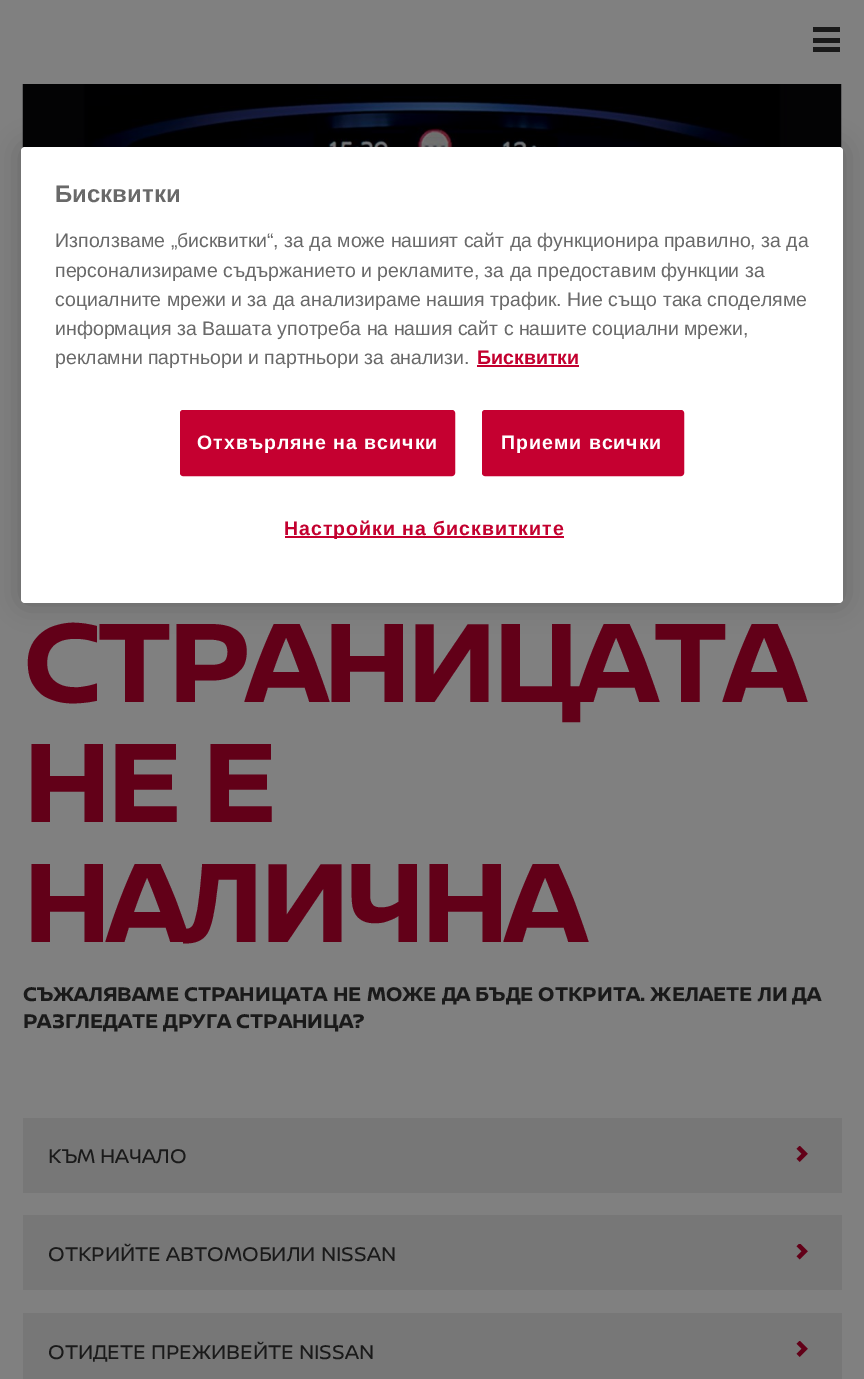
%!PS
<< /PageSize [864 1379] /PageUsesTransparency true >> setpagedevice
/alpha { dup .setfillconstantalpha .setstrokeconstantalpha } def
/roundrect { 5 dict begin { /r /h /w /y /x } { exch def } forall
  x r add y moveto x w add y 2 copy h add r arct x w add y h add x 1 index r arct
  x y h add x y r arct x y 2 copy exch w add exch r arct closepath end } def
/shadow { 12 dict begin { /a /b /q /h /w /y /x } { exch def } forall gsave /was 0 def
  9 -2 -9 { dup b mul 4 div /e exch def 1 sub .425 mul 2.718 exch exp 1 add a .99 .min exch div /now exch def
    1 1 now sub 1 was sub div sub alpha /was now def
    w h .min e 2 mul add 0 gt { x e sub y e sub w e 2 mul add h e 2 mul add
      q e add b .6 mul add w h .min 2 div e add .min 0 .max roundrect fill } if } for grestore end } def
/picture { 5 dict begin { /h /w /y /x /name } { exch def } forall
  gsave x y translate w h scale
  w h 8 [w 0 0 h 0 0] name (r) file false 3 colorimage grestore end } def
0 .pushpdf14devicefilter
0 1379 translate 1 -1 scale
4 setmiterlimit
0.502 setgray
0 0 864 1379 rectfill
0.102 setgray
813 27 27 5 rectfill
813 38 27 5 rectfill
813 47 27 5 rectfill
(img1.rgb) 22 84 820 65 picture
0 setgray
21 147 822 456 4 13.5 0.2 shadow
1 setgray
21 147 822 456 4 roundrect fill
/LiberationSans-Bold [24 0 0 -24 0 0] selectfont
0.412 setgray
55 202 moveto (Бисквитки) show
/LiberationSans-Regular [19.5 0 0 -19.5 0 0] selectfont
55 247 moveto (Използваме „бисквитки“, за да може нашият сайт да функционира правилно, за да) show
55 277 moveto (персонализираме съдържанието и рекламите, за да предоставим функции за) show
55 306 moveto (социалните мрежи и за да анализираме нашия трафик. Ние също така споделяме) show
55 335 moveto (информация за Вашата употреба на нашия сайт с нашите социални мрежи,) show
55 364 moveto (рекламни партньори и партньори за анализи.) show
/LiberationSans-Bold [19.5 0 0 -19.5 0 0] selectfont
0.765 0 0.184 setrgbcolor
477 364 moveto (Бисквитки) show
477 365 102 2 rectfill
0.773 0 0.188 setrgbcolor
181 411 273 64 2 roundrect gsave fill grestore
2 setlinewidth
stroke
1 setgray
197 449 moveto 1 0 (Отхвърляне на всички) ashow
0.773 0 0.188 setrgbcolor
483 411 200 64 2 roundrect gsave fill grestore
stroke
1 setgray
501 449 moveto 1 0 (Приеми всички) ashow
0.773 0 0.188 setrgbcolor
285 536 279 2 rectfill
0.765 0 0.184 setrgbcolor
284 535 moveto 1 0 (Настройки на бисквитките) ashow
/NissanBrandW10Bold-Bold [120 0 0 -120 0 0] selectfont
0.384 0 0.094 setrgbcolor
23 702 moveto -4.5 0 (СТРАНИЦАТА) ashow
23 822 moveto -4.5 0 (НЕ Е) ashow
23 942 moveto -4.5 0 (НАЛИЧНА) ashow
/NissanBrandW10Bold-Bold [21 0 0 -21 0 0] selectfont
0.102 setgray
23 1001 moveto (СЪЖАЛЯВАМЕ СТРАНИЦАТА НЕ МОЖЕ ДА БЪДЕ ОТКРИТА. ЖЕЛАЕТЕ ЛИ ДА) show
23 1028 moveto (РАЗГЛЕДАТЕ ДРУГА СТРАНИЦА?) show
0.467 setgray
23 1118 819 75 rectfill
/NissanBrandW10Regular-Regular [21 0 0 -21 0 0] selectfont
0.102 setgray
48 1163 moveto (КЪМ НАЧАЛО) show
(img2.rgb) 796 1146 12 16 picture
0.467 setgray
23 1215 819 75 rectfill
0.102 setgray
48 1261 moveto (ОТКРИЙТЕ АВТОМОБИЛИ NISSAN) show
(img3.rgb) 796 1244 12 16 picture
0.467 setgray
23 1313 819 66 rectfill
0.102 setgray
48 1359 moveto (ОТИДЕТЕ ПРЕЖИВЕЙТЕ NISSAN) show
(img2.rgb) 796 1341 12 16 picture
.poppdf14devicefilter showpage
